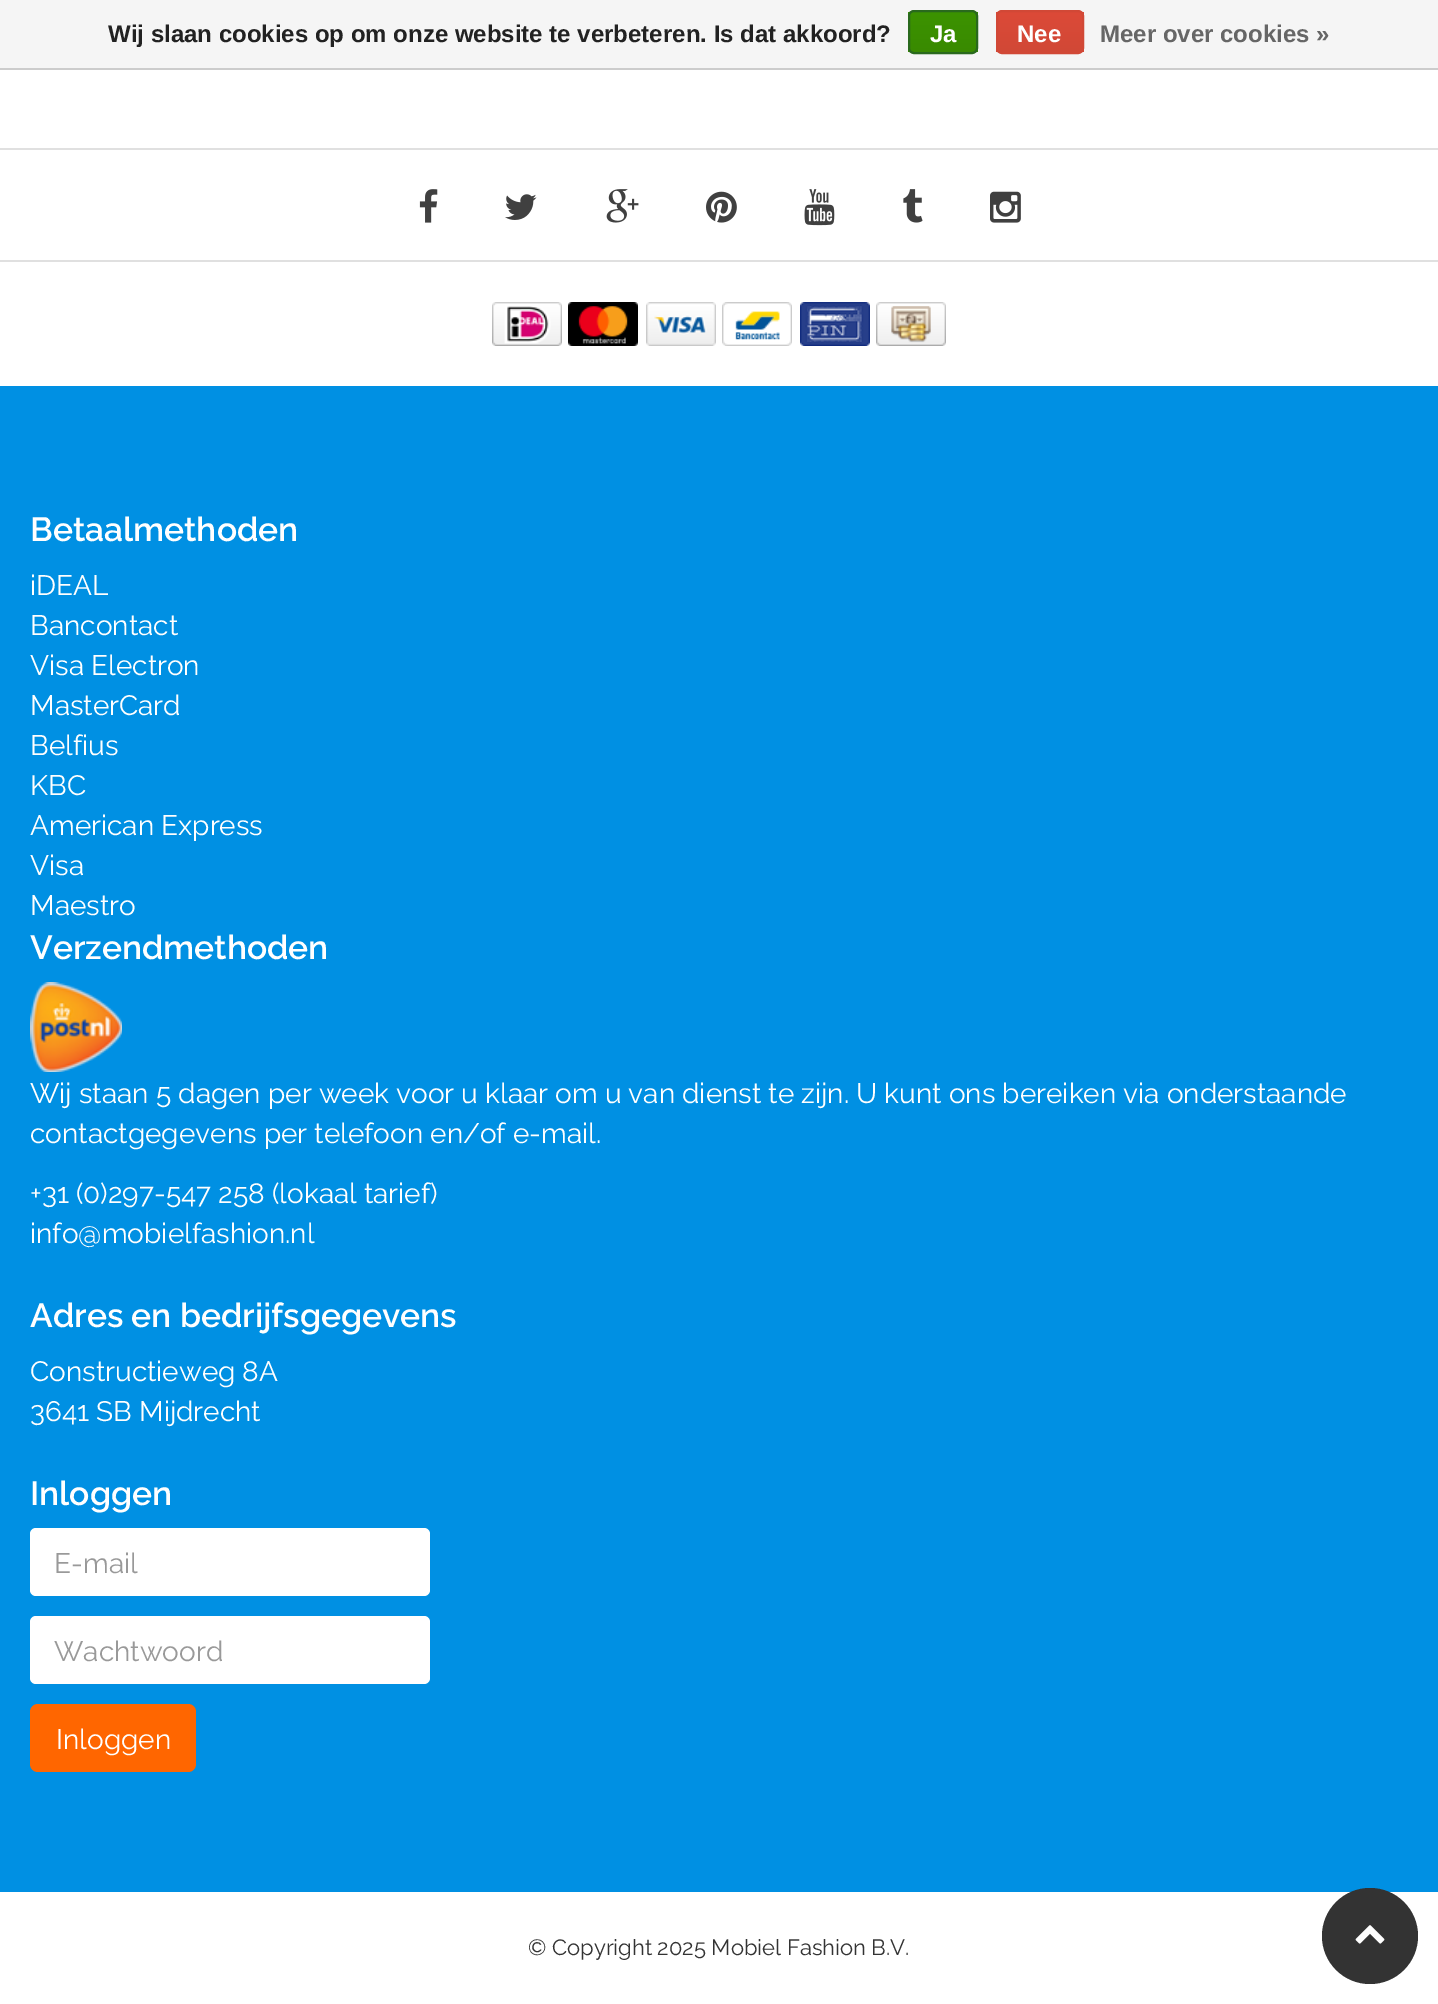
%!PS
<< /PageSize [1438 2004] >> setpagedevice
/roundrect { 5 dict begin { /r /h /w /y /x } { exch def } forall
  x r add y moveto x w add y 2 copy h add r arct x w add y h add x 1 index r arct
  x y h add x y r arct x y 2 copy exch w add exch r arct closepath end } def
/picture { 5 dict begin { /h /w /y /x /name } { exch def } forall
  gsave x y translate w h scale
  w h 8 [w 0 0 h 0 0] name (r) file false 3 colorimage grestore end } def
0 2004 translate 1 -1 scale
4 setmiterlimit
1 setgray
0 0 1438 2004 rectfill
0.961 setgray
0 0 1438 68 rectfill
0.8 setgray
0 68 1438 2 rectfill
/LiberationSans-Bold [24 0 0 -24 0 0] selectfont
0.133 setgray
108 42 moveto (Wij slaan cookies op om onze website te verbeteren. Is dat akkoord?) show
gsave
908 10 70 44 6 roundrect clip newpath
gsave newpath 908 12 moveto 978 12 lineto 978 52 lineto 908 52 lineto closepath clip newpath
<< /ShadingType 2 /ColorSpace /DeviceRGB /Coords [943 12 943 52] /Extend [true true] /Function << /FunctionType 2 /Domain [0 1] /C0 [0.235 0.576 0] /C1 [0.224 0.541 0] /N 1 >> >> shfill grestore
grestore
0.161 0.412 0.114 setrgbcolor
2 setlinewidth
909 11 68 42 5 roundrect stroke
1 setgray
930 42 moveto (Ja) show
gsave
996 10 88 44 6 roundrect clip newpath
gsave newpath 996 12 moveto 1084 12 lineto 1084 52 lineto 996 52 lineto closepath clip newpath
<< /ShadingType 2 /ColorSpace /DeviceRGB /Coords [1040 12 1040 52] /Extend [true true] /Function << /FunctionType 2 /Domain [0 1] /C0 [0.863 0.29 0.22] /C1 [0.82 0.282 0.212] /N 1 >> >> shfill grestore
grestore
0.82 0.282 0.212 setrgbcolor
997 11 86 42 5 roundrect stroke
1 setgray
1017 42 moveto (Nee) show
0.4 setgray
1100 42 moveto (Meer over cookies ») show
0.878 setgray
0 148 1438 2 rectfill
0 260 1438 2 rectfill
(img1.rgb) 419 189 19 34 picture
(img2.rgb) 505 194 32 26 picture
(img3.rgb) 606 189 33 34 picture
(img4.rgb) 706 191 31 32 picture
(img5.rgb) 804 189 31 37 picture
(img6.rgb) 903 189 20 34 picture
(img7.rgb) 990 191 31 32 picture
(img8.rgb) 492 302 70 44 picture
(img9.rgb) 568 302 70 44 picture
(img10.rgb) 646 302 70 44 picture
(img11.rgb) 722 302 70 44 picture
(img12.rgb) 800 302 70 44 picture
(img13.rgb) 876 302 70 44 picture
0 0.565 0.89 setrgbcolor
0 386 1438 1506 rectfill
/Raleway-SemiBold [33.6 0 0 -33.6 0 0] selectfont
1 setgray
30 541 moveto (Betaalmethoden) show
/Raleway-Regular [28 0 0 -28 0 0] selectfont
30 595 moveto (iDEAL) show
30 635 moveto (Bancontact) show
30 675 moveto (Visa Electron) show
30 715 moveto (MasterCard) show
30 755 moveto (Belfius) show
30 795 moveto (KBC) show
30 835 moveto (American Express) show
30 875 moveto (Visa) show
30 915 moveto (Maestro) show
/Raleway-SemiBold [33.6 0 0 -33.6 0 0] selectfont
30 959 moveto (Verzendmethoden) show
(img14.rgb) 30 982 92 90 picture
/Raleway-Regular [28 0 0 -28 0 0] selectfont
30 1103 moveto (Wij staan 5 dagen per week voor u klaar om u van dienst te zijn. U kunt ons bereiken via onderstaande) show
30 1143 moveto (contactgegevens per telefoon en/of e-mail.) show
30 1203 moveto (+31 \(0\)297-547 258 \(lokaal tarief\)) show
30 1243 moveto (info@mobielfashion.nl) show
/Raleway-SemiBold [33.6 0 0 -33.6 0 0] selectfont
30 1327 moveto (Adres en bedrijfsgegevens) show
/Raleway-Regular [28 0 0 -28 0 0] selectfont
30 1381 moveto (Constructieweg 8A) show
30 1421 moveto (3641 SB Mijdrecht) show
/Raleway-SemiBold [33.6 0 0 -33.6 0 0] selectfont
30 1505 moveto (Inloggen) show
30 1528 400 68 6 roundrect fill
/Raleway-Regular [28 0 0 -28 0 0] selectfont
0.6 setgray
54 1573 moveto (E-mail) show
1 setgray
30 1616 400 68 6 roundrect fill
0.6 setgray
54 1661 moveto (Wachtwoord) show
1 0.4 0 setrgbcolor
30 1704 166 68 8 roundrect fill
1 setgray
56 1749 moveto (Inloggen) show
/Raleway-Regular [22 0 0 -22 0 0] selectfont
0.2 setgray
528 1955 moveto (© Copyright 2025 Mobiel Fashion B.V.) show
newpath 1370 1936 48 0 360 arc closepath fill
(img15.rgb) 1355 1925 30 19 picture
showpage
